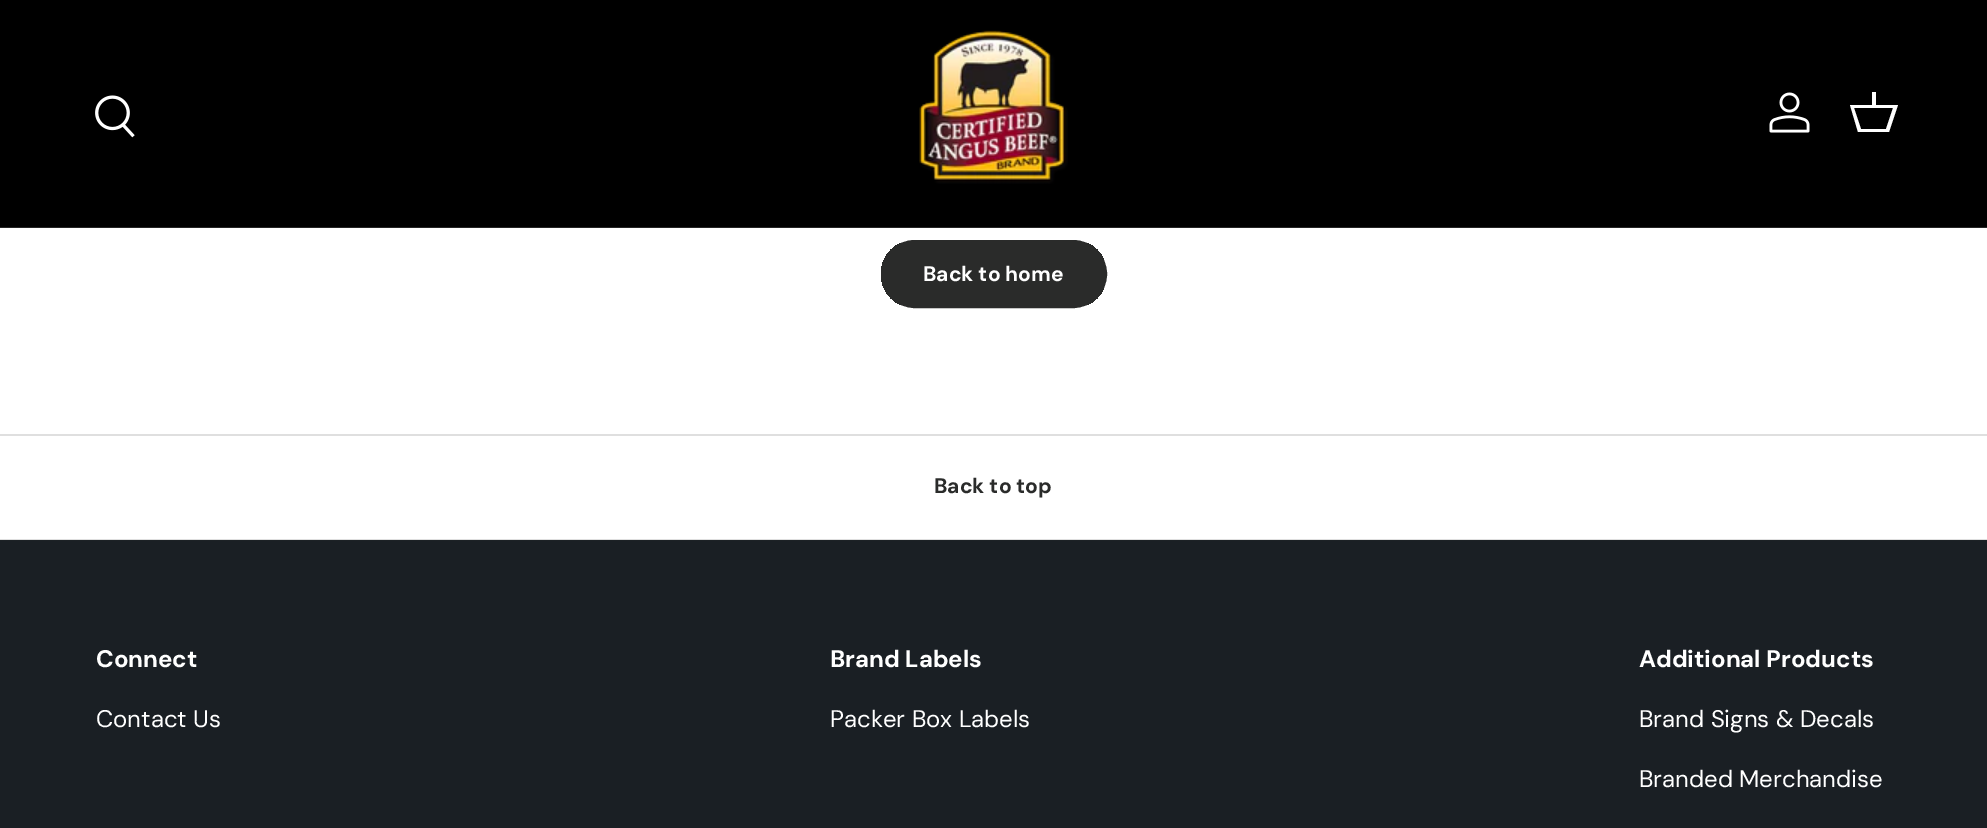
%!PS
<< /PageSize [1987 828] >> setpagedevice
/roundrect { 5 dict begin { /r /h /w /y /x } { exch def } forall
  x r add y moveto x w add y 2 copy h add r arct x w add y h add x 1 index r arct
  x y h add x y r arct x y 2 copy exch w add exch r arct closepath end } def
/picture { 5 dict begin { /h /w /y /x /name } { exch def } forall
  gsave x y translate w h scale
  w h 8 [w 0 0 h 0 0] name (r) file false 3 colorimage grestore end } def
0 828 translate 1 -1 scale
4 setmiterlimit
1 setgray
0 0 1987 828 rectfill
0.875 setgray
0 539 1987 1 rectfill
0 setgray
0 0 1987 227 rectfill
0.149 setgray
0 227 1987 1 rectfill
(img1.rgb) 95 95 40 43 picture
(img2.rgb) 919 30 149 154 picture
(img3.rgb) 1769 92 41 41 picture
1 setgray
newpath 1872 105 moveto 1872 92 lineto 1876 92 lineto 1876 105 lineto 1898 105 lineto 1889 132 lineto 1858 132 lineto 1850 105 lineto closepath 1854 108 moveto 1861 129 lineto 1886 129 lineto 1893 108 lineto closepath fill
gsave
881 240 226 68 34 roundrect clip newpath
gsave newpath 881 243 moveto 1104 243 lineto 1104 305 lineto 881 305 lineto closepath clip newpath
<< /ShadingType 2 /ColorSpace /DeviceRGB /Coords [455 194 1092 353] /Extend [true true] /Function << /FunctionType 3 /Domain [0 1] /Functions [<< /FunctionType 2 /Domain [0 1] /C0 [0.322 0.325 0.322] /C1 [0.322 0.325 0.322] /N 1 >> << /FunctionType 2 /Domain [0 1] /C0 [0.165 0.169 0.165] /C1 [0.165 0.169 0.165] /N 1 >>] /Bounds [0.6] /Encode [0 1 0 1] >> >> shfill grestore
grestore
0.165 0.169 0.165 setrgbcolor
3 setlinewidth
882.5 241.5 223 65 32.5 roundrect stroke
/DMSans-Bold [21 0 0 -21 0 0] selectfont
1 setgray
923 281 moveto (Back to home) show
0.875 setgray
0 434 1987 2 rectfill
0.165 0.169 0.165 setrgbcolor
934 493 moveto (Back to top) show
0.102 0.122 0.141 setrgbcolor
0 541 1987 287 rectfill
0.11 0.129 0.145 setrgbcolor
0 540 1987 1 rectfill
/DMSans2-Bold [24 0 0 -24 0 0] selectfont
1 setgray
96 667 moveto (Connect) show
/DMSans-Regular [24 0 0 -24 0 0] selectfont
96 727 moveto (Contact Us) show
/DMSans2-Bold [24 0 0 -24 0 0] selectfont
830 667 moveto (Brand Labels) show
/DMSans-Regular [24 0 0 -24 0 0] selectfont
830 727 moveto (Packer Box Labels) show
/DMSans2-Bold [24 0 0 -24 0 0] selectfont
1639 667 moveto (Additional Products) show
/DMSans-Regular [24 0 0 -24 0 0] selectfont
1639 727 moveto (Brand Signs & Decals) show
1639 787 moveto (Branded Merchandise) show
showpage
